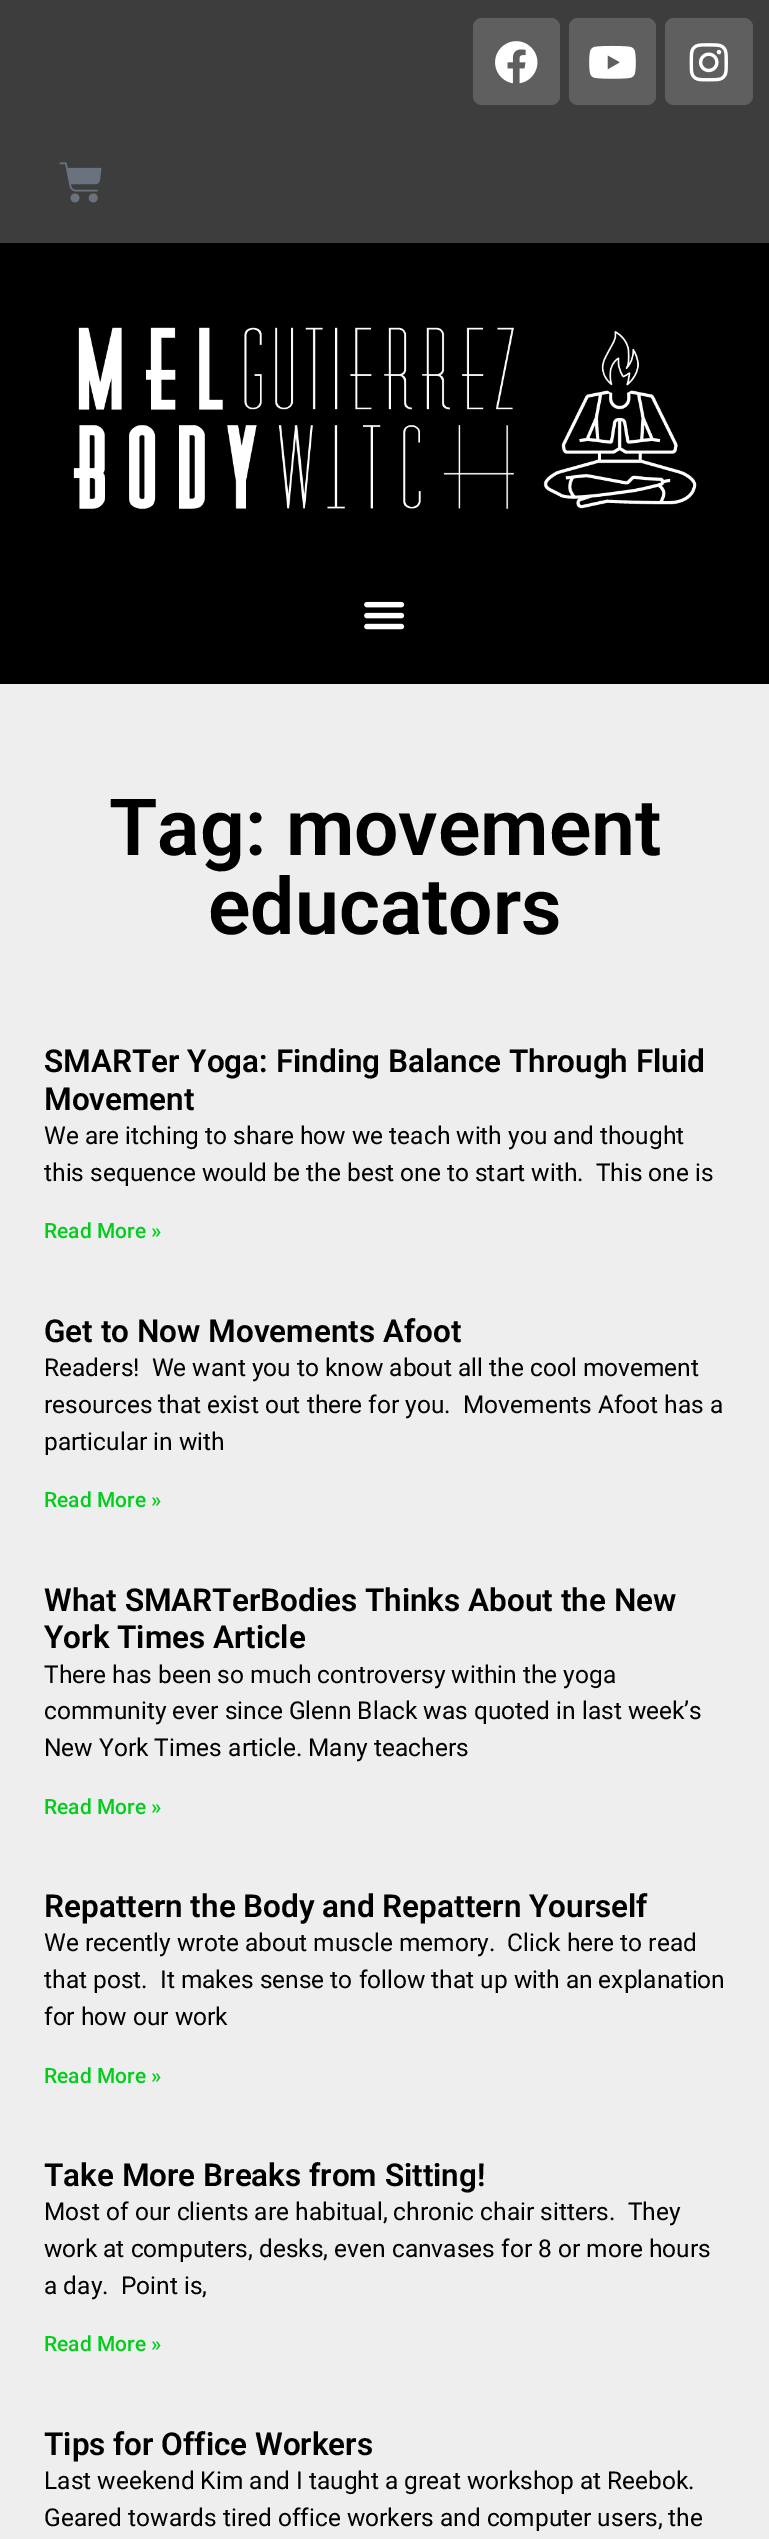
%!PS
<< /PageSize [769 2539] >> setpagedevice
/roundrect { 5 dict begin { /r /h /w /y /x } { exch def } forall
  x r add y moveto x w add y 2 copy h add r arct x w add y h add x 1 index r arct
  x y h add x y r arct x y 2 copy exch w add exch r arct closepath end } def
/picture { 5 dict begin { /h /w /y /x /name } { exch def } forall
  gsave x y translate w h scale
  w h 8 [w 0 0 h 0 0] name (r) file false 3 colorimage grestore end } def
0 2539 translate 1 -1 scale
4 setmiterlimit
0.243 0.239 0.239 setrgbcolor
0 0 769 2539 rectfill
0.376 0.373 0.373 setrgbcolor
473 18 87 87 9 roundrect fill
(img1.rgb) 495 41 43 43 picture
569 18 87 87 9 roundrect fill
(img2.rgb) 589 45 47 34 picture
665 18 88 87 9 roundrect fill
(img3.rgb) 689 43 39 39 picture
(img4.rgb) 59 162 43 41 picture
0 setgray
0 243 769 441 rectfill
(img5.rgb) 73 327 624 183 picture
(img6.rgb) 364 601 41 29 picture
0.933 setgray
0 684 769 1855 rectfill
/Roboto-SemiBold [78.75 0 0 -78.75 0 0] selectfont
0 setgray
109 855 moveto (Tag: movement) show
208 934 moveto (educators) show
/Roboto-SemiBold [31.5 0 0 -31.5 0 0] selectfont
44 1072 moveto (SMARTer Yoga: Finding Balance Through Fluid) show
44 1110 moveto (Movement) show
/Roboto-Regular [24.5 0 0 -24.5 0 0] selectfont
44 1144 moveto (We are itching to share how we teach with you and thought) show
44 1181 moveto (this sequence would be the best one to start with.  This one is) show
/Roboto-Medium [21 0 0 -21 0 0] selectfont
0 0.808 0.106 setrgbcolor
44 1238 moveto (Read More ») show
/Roboto-SemiBold [31.5 0 0 -31.5 0 0] selectfont
0 setgray
44 1342 moveto (Get to Now Movements Afoot) show
/Roboto-Regular [24.5 0 0 -24.5 0 0] selectfont
44 1376 moveto (Readers!  We want you to know about all the cool movement) show
44 1413 moveto (resources that exist out there for you.  Movements Afoot has a) show
44 1450 moveto (particular in with) show
/Roboto-Medium [21 0 0 -21 0 0] selectfont
0 0.808 0.106 setrgbcolor
44 1507 moveto (Read More ») show
/Roboto-SemiBold [31.5 0 0 -31.5 0 0] selectfont
0 setgray
44 1611 moveto (What SMARTerBodies Thinks About the New) show
44 1648 moveto (York Times Article) show
/Roboto-Regular [24.5 0 0 -24.5 0 0] selectfont
44 1683 moveto (There has been so much controversy within the yoga) show
44 1719 moveto (community ever since Glenn Black was quoted in last week’s) show
44 1756 moveto (New York Times article. Many teachers) show
/Roboto-Medium [21 0 0 -21 0 0] selectfont
0 0.808 0.106 setrgbcolor
44 1814 moveto (Read More ») show
/Roboto-SemiBold [31.5 0 0 -31.5 0 0] selectfont
0 setgray
44 1917 moveto (Repattern the Body and Repattern Yourself) show
/Roboto-Regular [24.5 0 0 -24.5 0 0] selectfont
44 1951 moveto (We recently wrote about muscle memory.  Click here to read) show
44 1988 moveto (that post.  It makes sense to follow that up with an explanation) show
44 2025 moveto (for how our work) show
/Roboto-Medium [21 0 0 -21 0 0] selectfont
0 0.808 0.106 setrgbcolor
44 2083 moveto (Read More ») show
/Roboto-SemiBold [31.5 0 0 -31.5 0 0] selectfont
0 setgray
44 2186 moveto (Take More Breaks from Sitting!) show
/Roboto-Regular [24.5 0 0 -24.5 0 0] selectfont
44 2220 moveto (Most of our clients are habitual, chronic chair sitters.  They) show
44 2257 moveto (work at computers, desks, even canvases for 8 or more hours) show
44 2294 moveto (a day.  Point is,) show
/Roboto-Medium [21 0 0 -21 0 0] selectfont
0 0.808 0.106 setrgbcolor
44 2351 moveto (Read More ») show
/Roboto-SemiBold [31.5 0 0 -31.5 0 0] selectfont
0 setgray
44 2455 moveto (Tips for Office Workers) show
/Roboto-Regular [24.5 0 0 -24.5 0 0] selectfont
44 2489 moveto (Last weekend Kim and I taught a great workshop at Reebok.) show
44 2526 moveto (Geared towards tired office workers and computer users, the) show
showpage
